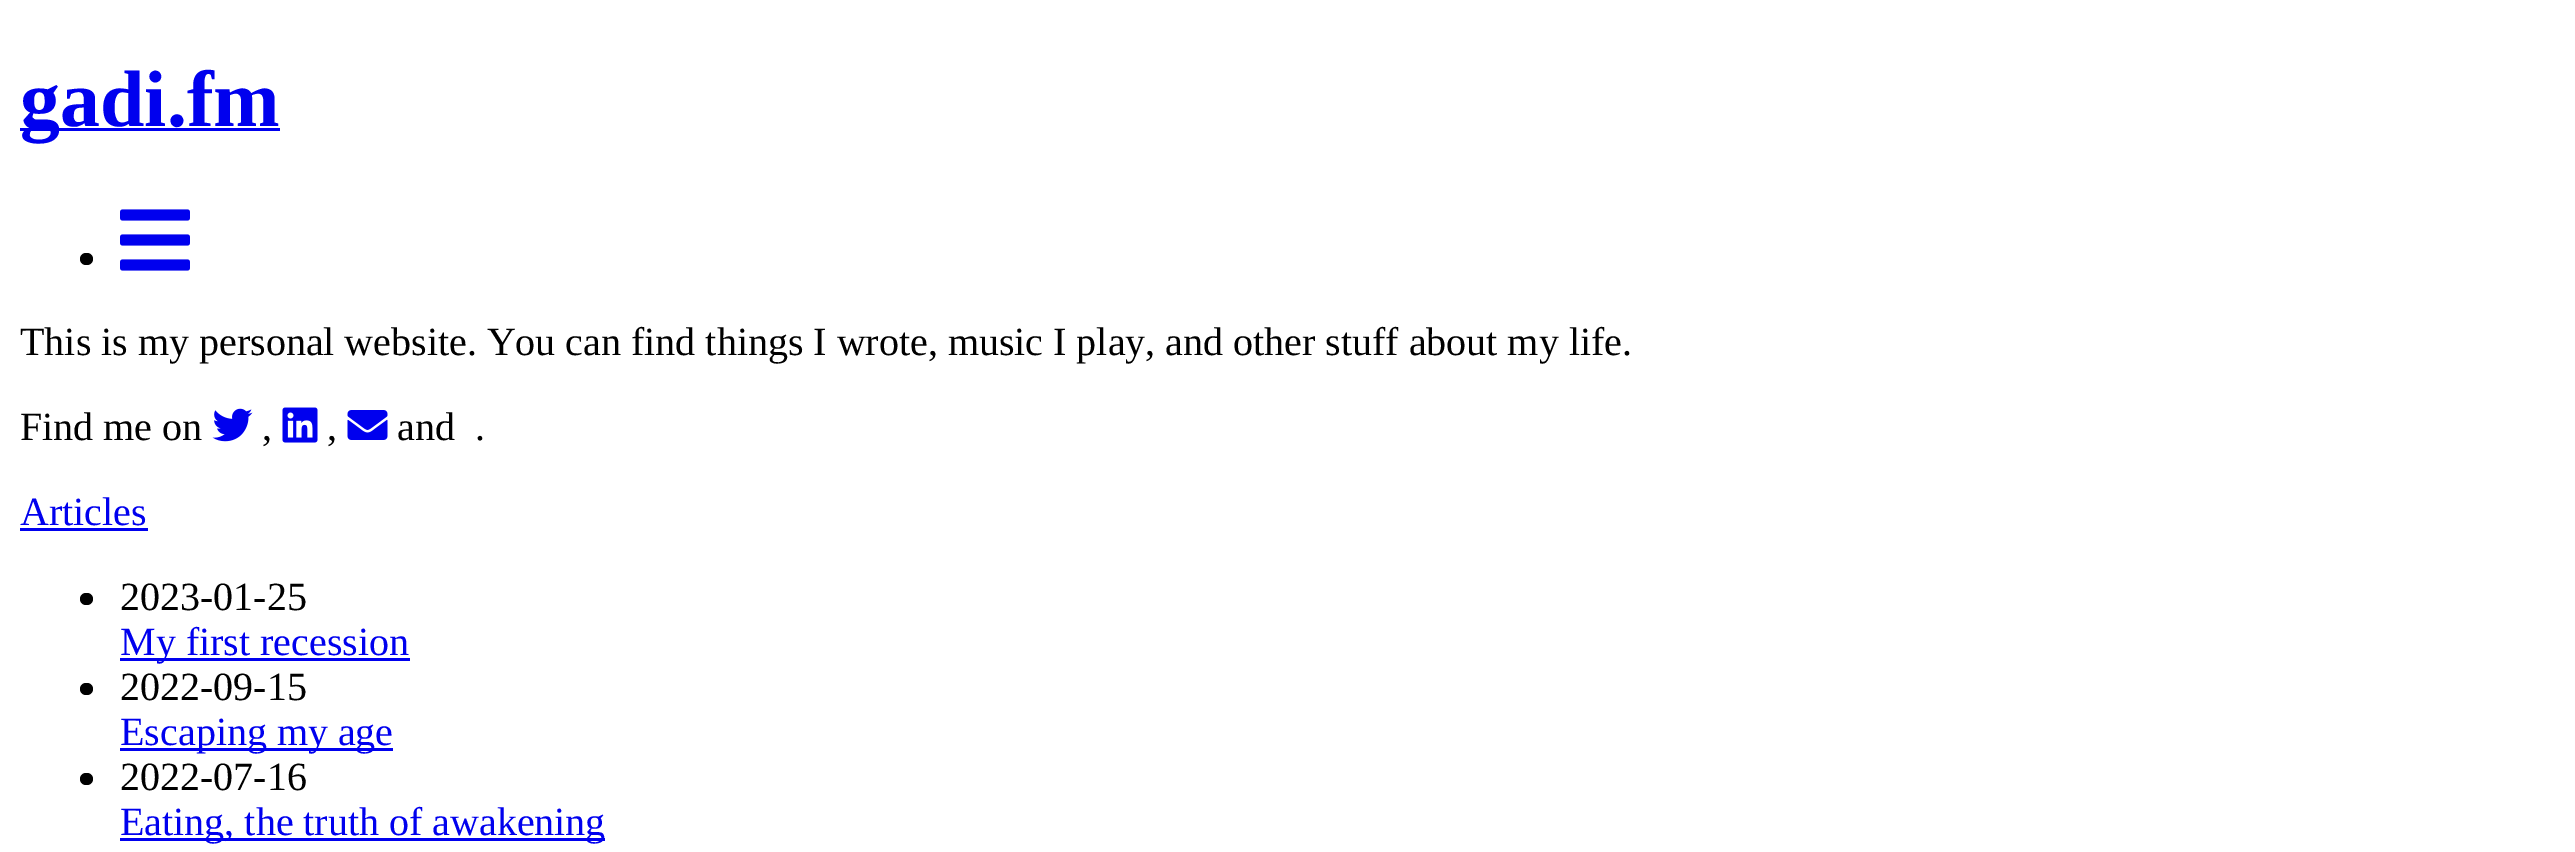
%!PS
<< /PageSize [2575 852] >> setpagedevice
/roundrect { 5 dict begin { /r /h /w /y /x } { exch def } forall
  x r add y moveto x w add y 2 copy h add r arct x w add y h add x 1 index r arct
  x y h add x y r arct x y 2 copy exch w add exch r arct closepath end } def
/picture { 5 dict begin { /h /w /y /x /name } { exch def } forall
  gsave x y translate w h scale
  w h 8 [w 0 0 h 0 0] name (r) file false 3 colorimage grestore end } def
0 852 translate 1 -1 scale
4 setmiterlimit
1 setgray
0 0 2575 852 rectfill
0 0 0.933 setrgbcolor
20 128 260 3 rectfill
/LiberationSerif-Bold [80 0 0 -80 0 0] selectfont
20 126 moveto (gadi.fm) show
0 setgray
80 253 13 12 6 roundrect fill
(img1.rgb) 120 209 70 62 picture
/LiberationSerif-Regular [40 0 0 -40 0 0] selectfont
20 355 moveto (This is my personal website. You can find things I wrote, music I play, and other stuff about my life.) show
20 440 moveto (Find me on) show
(img2.rgb) 212 408 41 34 picture
262 440 moveto (,) show
(img3.rgb) 282 407 36 36 picture
327 440 moveto (,) show
(img4.rgb) 347 410 41 30 picture
397 440 moveto (and) show
475 440 moveto (.) show
0 0 0.933 setrgbcolor
20 525 moveto (Articles) show
20 528 128 3 rectfill
0 setgray
80 593 13 12 6 roundrect fill
120 610 moveto (2023-01-25) show
0 0 0.933 setrgbcolor
120 658 290 3 rectfill
120 655 moveto (My first recession) show
0 setgray
80 683 13 12 6 roundrect fill
120 700 moveto (2022-09-15) show
0 0 0.933 setrgbcolor
120 748 273 3 rectfill
120 745 moveto (Escaping my age) show
0 setgray
80 773 13 12 6 roundrect fill
120 790 moveto (2022-07-16) show
0 0 0.933 setrgbcolor
120 838 485 3 rectfill
120 835 moveto (Eating, the truth of awakening) show
showpage
